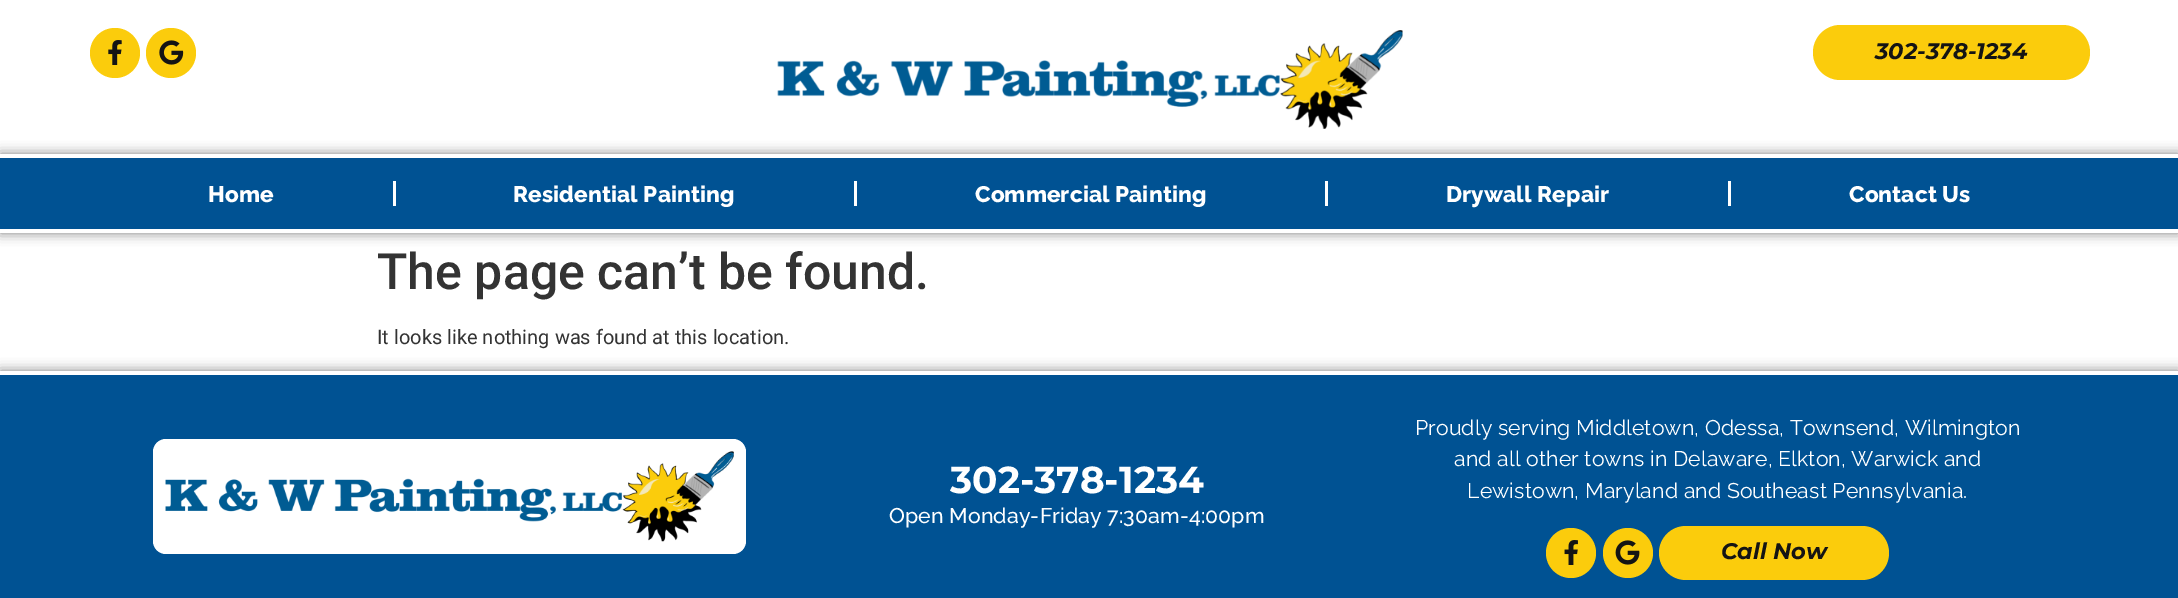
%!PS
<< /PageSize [2178 598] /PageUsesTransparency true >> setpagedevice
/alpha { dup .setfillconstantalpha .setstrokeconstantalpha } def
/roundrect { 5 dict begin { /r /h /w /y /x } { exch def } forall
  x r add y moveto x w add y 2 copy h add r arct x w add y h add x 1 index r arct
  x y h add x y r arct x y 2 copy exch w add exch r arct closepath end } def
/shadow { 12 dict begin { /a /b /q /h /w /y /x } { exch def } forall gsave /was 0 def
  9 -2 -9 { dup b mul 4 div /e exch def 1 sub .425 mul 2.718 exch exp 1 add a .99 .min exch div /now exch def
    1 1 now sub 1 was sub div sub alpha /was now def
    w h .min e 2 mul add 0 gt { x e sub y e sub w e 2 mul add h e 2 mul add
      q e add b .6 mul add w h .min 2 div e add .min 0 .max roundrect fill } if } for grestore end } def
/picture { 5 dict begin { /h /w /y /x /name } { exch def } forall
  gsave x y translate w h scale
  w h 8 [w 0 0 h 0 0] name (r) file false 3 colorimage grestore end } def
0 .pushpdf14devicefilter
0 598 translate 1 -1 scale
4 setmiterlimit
1 setgray
0 0 2178 598 rectfill
(img1.rgb) 777 30 626 99 picture
0.984 0.8 0.047 setrgbcolor
newpath 115 53 25 0 360 arc closepath fill
(img2.rgb) 108 40 14 25 picture
newpath 171 53 25 0 360 arc closepath fill
(img3.rgb) 159 40 25 25 picture
1813 25 277 55 27.5 roundrect fill
/Montserrat-BoldItalic [22.5 0 0 -22.5 0 0] selectfont
0.078 setgray
1875 59 moveto (302-378-1234) show
0 setgray
0 154 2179 79 0 6 0.5 shadow
0 0.322 0.576 setrgbcolor
0 158 2178 71 rectfill
1 setgray
0 154 2178 4 rectfill
0 229 2178 4 rectfill
/Raleway-ExtraBold [22.5 0 0 -22.5 0 0] selectfont
208 202 moveto 0.12 0 (Home) ashow
393 181 3 25 rectfill
513 202 moveto 0.12 0 (Residential Painting) ashow
854 181 3 25 rectfill
975 202 moveto 0.12 0 (Commercial Painting) ashow
1325 181 3 25 rectfill
1446 202 moveto 0.12 0 (Drywall Repair) ashow
1728 181 3 25 rectfill
1849 202 moveto 0.12 0 (Contact Us) ashow
/Roboto-Medium [50 0 0 -50 0 0] selectfont
0.2 setgray
377 289 moveto (The page can’t be found.) show
/Roboto-Regular [20 0 0 -20 0 0] selectfont
377 344 moveto (It looks like nothing was found at this location.) show
0 setgray
0 371 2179 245 0 6 0.5 shadow
0 0.322 0.576 setrgbcolor
0 375 2178 223 rectfill
1 setgray
0 371 2178 4 rectfill
153 439 593 115 13 roundrect fill
(img4.rgb) 165 451 569 91 picture
/Montserrat-Bold [37.5 0 0 -37.5 0 0] selectfont
950 493 moveto (302-378-1234) show
/Raleway-Medium [21.25 0 0 -21.25 0 0] selectfont
889 523 moveto 0.12 0 (Open Monday-Friday 7:30am-4:00pm) ashow
/Raleway-Regular [21.25 0 0 -21.25 0 0] selectfont
1415 435 moveto 0.12 0 (Proudly serving Middletown, Odessa, Townsend, Wilmington) ashow
1454 466 moveto 0.12 0 (and all other towns in Delaware, Elkton, Warwick and) ashow
1467 498 moveto 0.12 0 (Lewistown, Maryland and Southeast Pennsylvania.) ashow
0.984 0.8 0.047 setrgbcolor
newpath 1571 553 25 0 360 arc closepath fill
(img5.rgb) 1564 540 14 25 picture
newpath 1628 553 25 0 360 arc closepath fill
(img6.rgb) 1615 540 25 25 picture
1659 526 230 54 27 roundrect fill
/Montserrat-BoldItalic [22.5 0 0 -22.5 0 0] selectfont
0.078 setgray
1721 559 moveto (Call Now) show
.poppdf14devicefilter showpage
